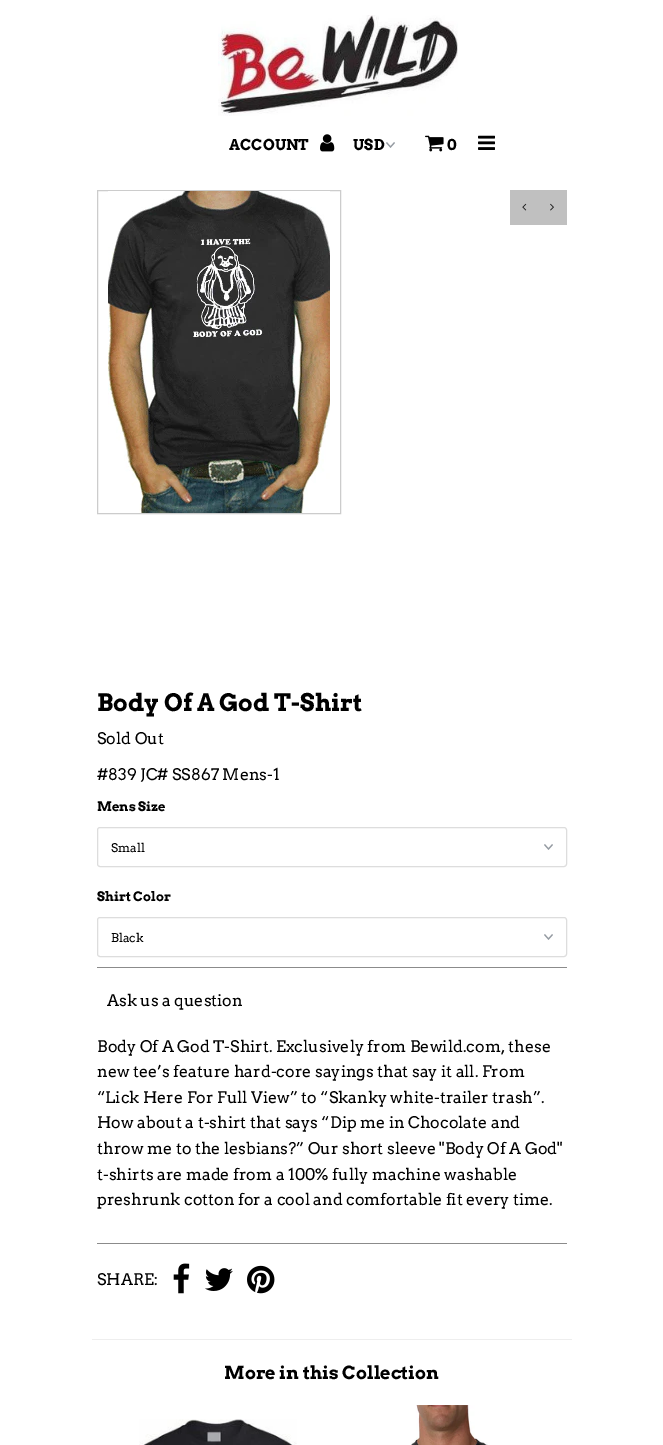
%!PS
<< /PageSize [663 1445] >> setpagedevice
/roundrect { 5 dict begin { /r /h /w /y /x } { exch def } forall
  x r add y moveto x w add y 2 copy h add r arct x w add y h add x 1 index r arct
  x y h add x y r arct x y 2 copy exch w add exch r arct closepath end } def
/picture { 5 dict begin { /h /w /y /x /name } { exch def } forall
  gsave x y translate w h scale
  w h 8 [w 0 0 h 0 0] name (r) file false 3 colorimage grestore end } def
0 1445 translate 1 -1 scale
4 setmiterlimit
1 setgray
0 0 663 1445 rectfill
(img1.rgb) 218 15 240 101 picture
/Arvo-Bold [15 0 0 -15 0 0] selectfont
0 setgray
229 150 moveto (ACCOUNT) show
(img2.rgb) 320 134 15 18 picture
(img3.rgb) 386 142 9 6 picture
353 150 moveto (USD) show
(img4.rgb) 425 135 19 17 picture
447 150 moveto (0) show
(img5.rgb) 478 135 17 15 picture
0.8 setgray
97.5 190.5 243 323 rectstroke
(img6.rgb) 108 191 222 322 picture
0.753 setgray
510 190 57 35 rectfill
(img7.rgb) 522 203 5 8 picture
(img8.rgb) 550 203 4 8 picture
/Arvo-Bold [24 0 0 -24 0 0] selectfont
0 setgray
97 711 moveto (Body Of A God T-Shirt) show
/Arvo-Regular [16 0 0 -16 0 0] selectfont
97 744 moveto (Sold Out) show
97 780 moveto (#839 JC# SS867 Mens-1) show
0.545 setgray
97 967 470 1 rectfill
/Arvo-Bold [13 0 0 -13 0 0] selectfont
0 setgray
97 811 moveto (Mens Size) show
(img3.rgb) 544 844 9 6 picture
0.867 setgray
97.5 827.5 469 39 2.5 roundrect stroke
/Arvo-Regular [12 0 0 -12 0 0] selectfont
0 setgray
111 852 moveto (Small) show
/Arvo-Bold [13 0 0 -13 0 0] selectfont
97 901 moveto (Shirt Color) show
(img3.rgb) 544 934 9 6 picture
0.867 setgray
97.5 917.5 469 39 2.5 roundrect stroke
/Arvo-Regular [12 0 0 -12 0 0] selectfont
0 setgray
111 942 moveto (Black) show
/Arvo-Regular [16 0 0 -16 0 0] selectfont
107 1006 moveto (Ask us a question) show
97 1052 moveto (Body Of A God T-Shirt. Exclusively from Bewild.com, these) show
97 1077 moveto (new tee’s feature hard-core sayings that say it all. From) show
97 1103 moveto (“Lick Here For Full View” to “Skanky white-trailer trash”.) show
97 1128 moveto (How about a t-shirt that says “Dip me in Chocolate and) show
97 1154 moveto (throw me to the lesbians?” Our short sleeve "Body Of A God") show
97 1180 moveto (t-shirts are made from a 100% fully machine washable) show
97 1205 moveto (preshrunk cotton for a cool and comfortable fit every time.) show
0.545 setgray
97 1243 470 1 rectfill
0 setgray
97 1285 moveto (SHARE:) show
(img9.rgb) 173 1263 17 31 picture
(img10.rgb) 205 1268 28 23 picture
(img11.rgb) 247 1265 28 29 picture
0.933 setgray
92 1339 480 1 rectfill
/Arvo-Bold [18 0 0 -18 0 0] selectfont
0 setgray
224 1379 moveto (More in this Collection) show
(img12.rgb) 139 1419 158 26 picture
(img13.rgb) 411 1405 77 40 picture
showpage
